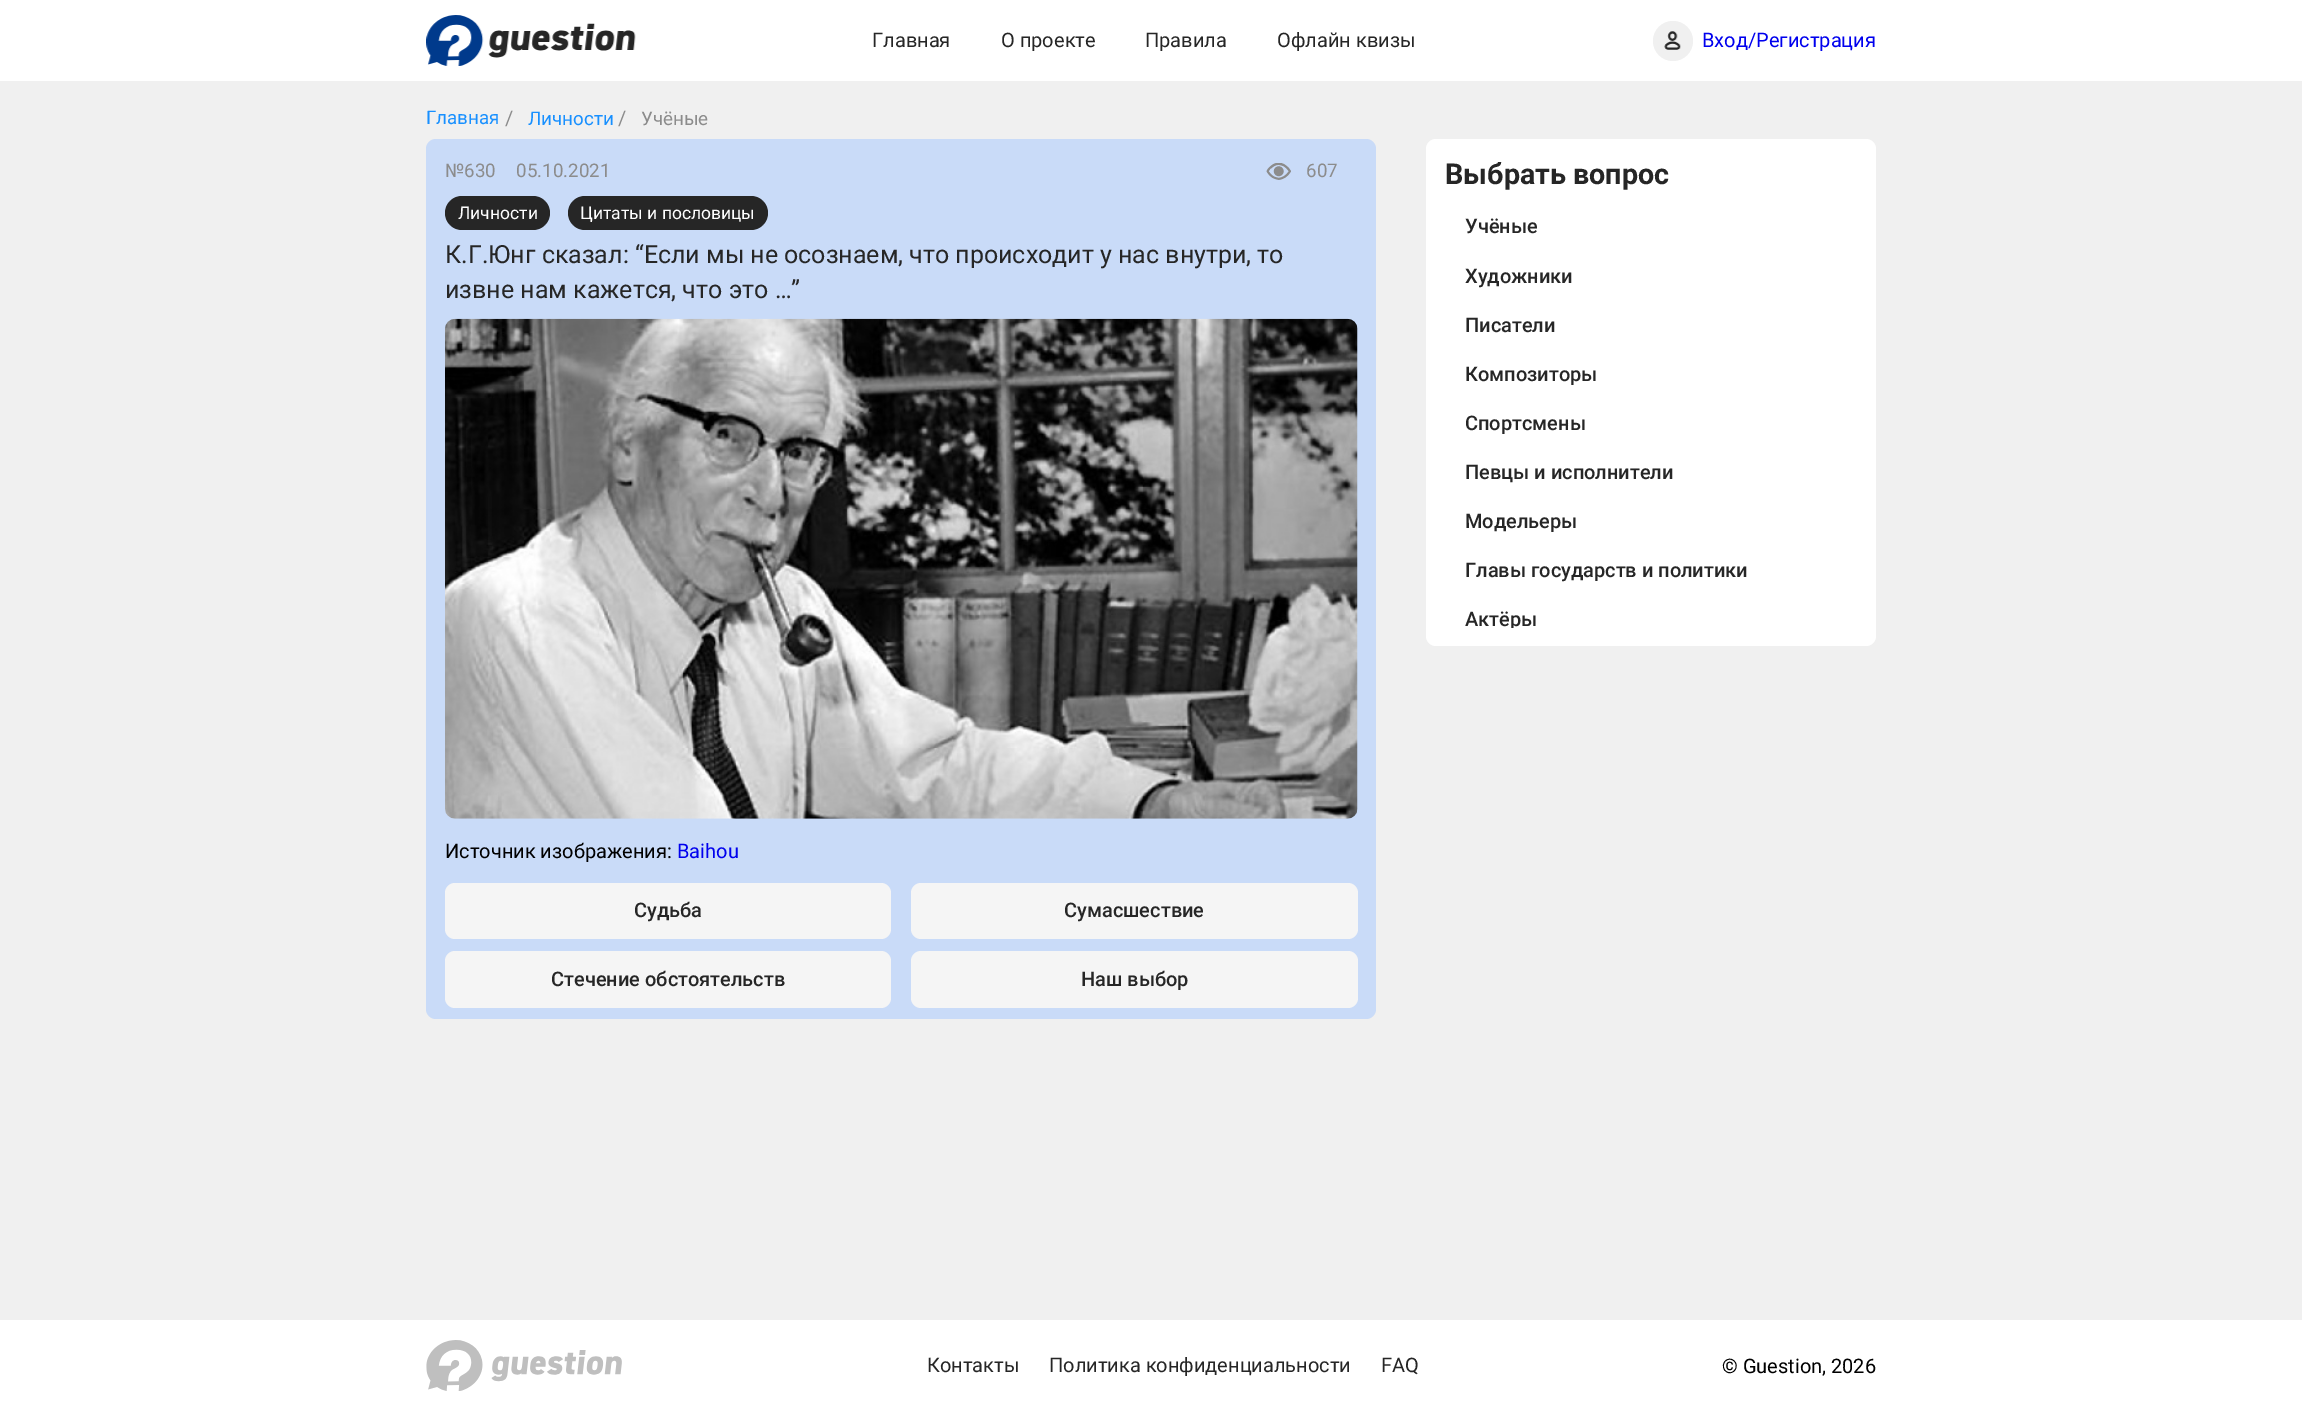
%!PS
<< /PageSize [2302 1411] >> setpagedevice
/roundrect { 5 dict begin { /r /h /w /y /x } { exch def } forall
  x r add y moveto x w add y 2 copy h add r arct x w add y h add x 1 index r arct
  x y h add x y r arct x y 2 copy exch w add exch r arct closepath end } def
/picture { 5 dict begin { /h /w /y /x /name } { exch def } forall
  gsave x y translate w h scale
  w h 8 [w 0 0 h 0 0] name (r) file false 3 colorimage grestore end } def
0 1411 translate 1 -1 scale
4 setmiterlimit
0.941 setgray
0 0 2302 1411 rectfill
1 setgray
0 0 2302 81 rectfill
(img1.rgb) 426 15 210 51 picture
/Roboto-Regular [20 0 0 -20 0 0] selectfont
0.149 setgray
872 47 moveto (Главная) show
1001 47 moveto (О проекте) show
1145 47 moveto (Правила) show
1277 47 moveto (Офлайн квизы) show
0.941 setgray
newpath 1673 41 20 0 360 arc closepath fill
(img2.rgb) 1664 31 17 19 picture
0 0 0.933 setrgbcolor
1702 47 moveto (Вход/Регистрация) show
/Roboto-Regular [18.75 0 0 -18.75 0 0] selectfont
0.094 0.565 1 setrgbcolor
426 124 moveto (Главная) show
/Roboto-Regular [20 0 0 -20 0 0] selectfont
0.549 setgray
505 125 moveto (/) show
/Roboto-Regular [18.75 0 0 -18.75 0 0] selectfont
0.094 0.565 1 setrgbcolor
528 125 moveto (Личности) show
/Roboto-Regular [20 0 0 -20 0 0] selectfont
0.549 setgray
618 125 moveto (/) show
/Roboto-Regular [18.75 0 0 -18.75 0 0] selectfont
641 125 moveto (Учёные) show
0.788 0.859 0.973 setrgbcolor
426 139 950 880 10 roundrect fill
0.549 setgray
445 177 moveto (№630) show
516 177 moveto (05.10.2021) show
(img3.rgb) 1266 163 25 17 picture
1306 177 moveto (607) show
0.149 setgray
445 196 105 34 17 roundrect fill
/Roboto-Regular [17.5 0 0 -17.5 0 0] selectfont
1 setgray
458 219 moveto (Личности) show
0.149 setgray
568 196 200 34 17 roundrect fill
1 setgray
580 219 moveto (Цитаты и пословицы) show
/Roboto-Regular [25 0 0 -25 0 0] selectfont
0.149 setgray
445 263 moveto (К.Г.Юнг сказал: “Если мы не осознаем, что происходит у нас внутри, то) show
445 298 moveto (извне нам кажется, что это …”) show
(img4.rgb) 445 318 913 501 picture
/Roboto-Regular [20 0 0 -20 0 0] selectfont
0 setgray
445 858 moveto (Источник изображения:) show
0 0 0.933 setrgbcolor
677 858 moveto (Baihou) show
0.961 setgray
445 883 446 56 10 roundrect fill
/Roboto-Medium [20 0 0 -20 0 0] selectfont
0.149 setgray
634 917 moveto (Судьба) show
0.961 setgray
911 883 447 56 10 roundrect fill
0.149 setgray
1064 917 moveto (Сумасшествие) show
0.961 setgray
445 951 446 57 10 roundrect fill
0.149 setgray
551 986 moveto (Стечение обстоятельств) show
0.961 setgray
911 951 447 57 10 roundrect fill
0.149 setgray
1081 986 moveto (Наш выбор) show
1 setgray
1426 139 450 507 10 roundrect fill
/Roboto-Bold [28.75 0 0 -28.75 0 0] selectfont
0.149 setgray
1445 184 moveto (Выбрать вопрос) show
/Roboto-Medium [20 0 0 -20 0 0] selectfont
1465 233 moveto (Учёные) show
1465 283 moveto (Художники) show
1465 332 moveto (Писатели) show
1465 381 moveto (Композиторы) show
1465 430 moveto (Спортсмены) show
1465 479 moveto (Певцы и исполнители) show
1465 528 moveto (Модельеры) show
1465 577 moveto (Главы государств и политики) show
gsave
1445 205 413 423 rectclip
1465 626 moveto (Актёры) show
grestore
1 setgray
0 1320 2302 91 rectfill
(img5.rgb) 426 1340 196 51 picture
/Roboto-Regular [20 0 0 -20 0 0] selectfont
0.149 setgray
927 1372 moveto (Контакты) show
1049 1372 moveto (Политика конфиденциальности) show
1381 1372 moveto (FAQ) show
0 setgray
1722 1373 moveto (© Guestion, 2026) show
showpage
